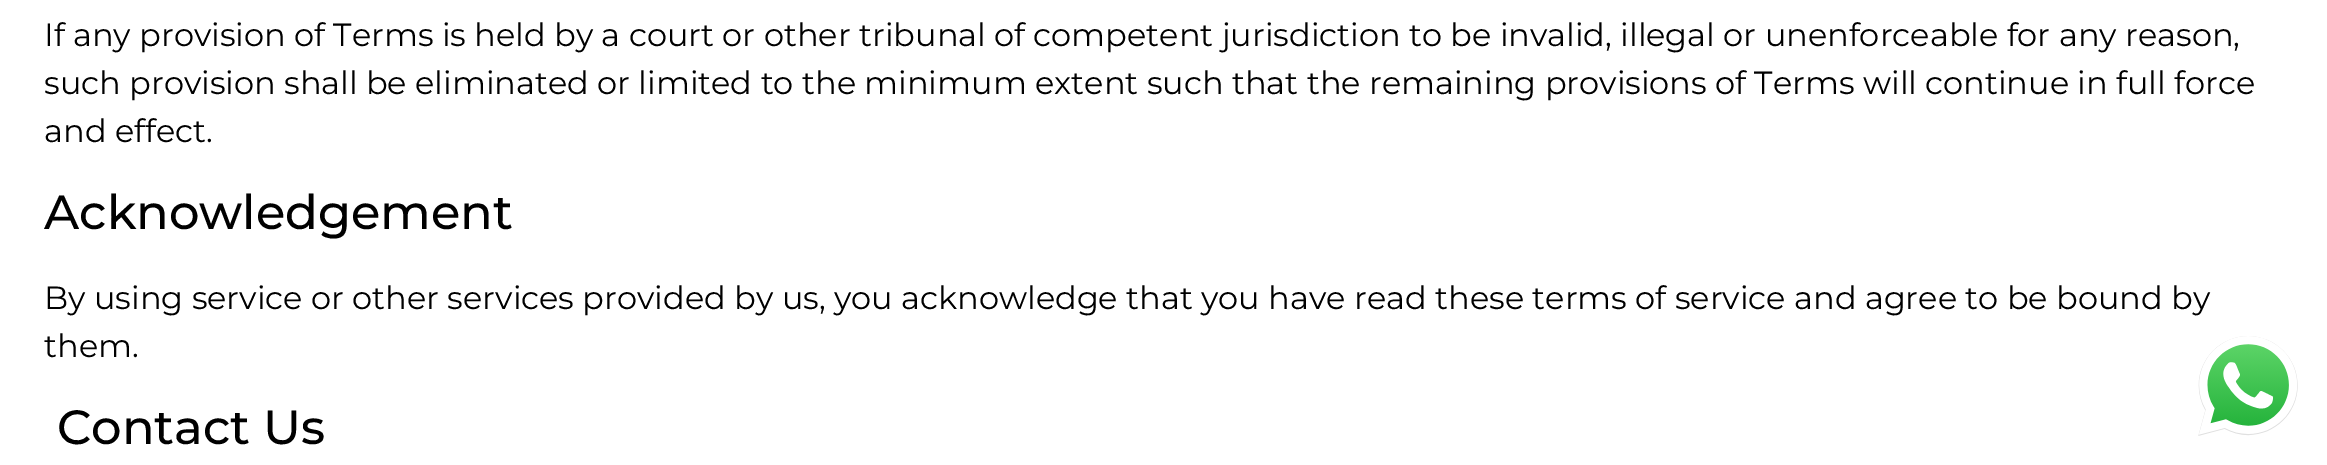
%!PS
<< /PageSize [2327 465] >> setpagedevice
/picture { 5 dict begin { /h /w /y /x /name } { exch def } forall
  gsave x y translate w h scale
  w h 8 [w 0 0 h 0 0] name (r) file false 3 colorimage grestore end } def
0 465 translate 1 -1 scale
4 setmiterlimit
1 setgray
0 0 2327 465 rectfill
/Montserrat-Regular [32 0 0 -32 0 0] selectfont
0 setgray
44 46 moveto (If any provision of Terms is held by a court or other tribunal of competent jurisdiction to be invalid, illegal or unenforceable for any reason,) show
44 94 moveto (such provision shall be eliminated or limited to the minimum extent such that the remaining provisions of Terms will continue in full force) show
44 142 moveto (and effect.) show
/Montserrat-Medium [48 0 0 -48 0 0] selectfont
44 229 moveto (Acknowledgement) show
/Montserrat-Regular [32 0 0 -32 0 0] selectfont
44 309 moveto (By using service or other services provided by us, you acknowledge that you have read these terms of service and agree to be bound by) show
44 357 moveto (them.) show
/Montserrat-Medium [48 0 0 -48 0 0] selectfont
57 444 moveto (Contact Us) show
(img1.rgb) 2198 336 100 100 picture
showpage
